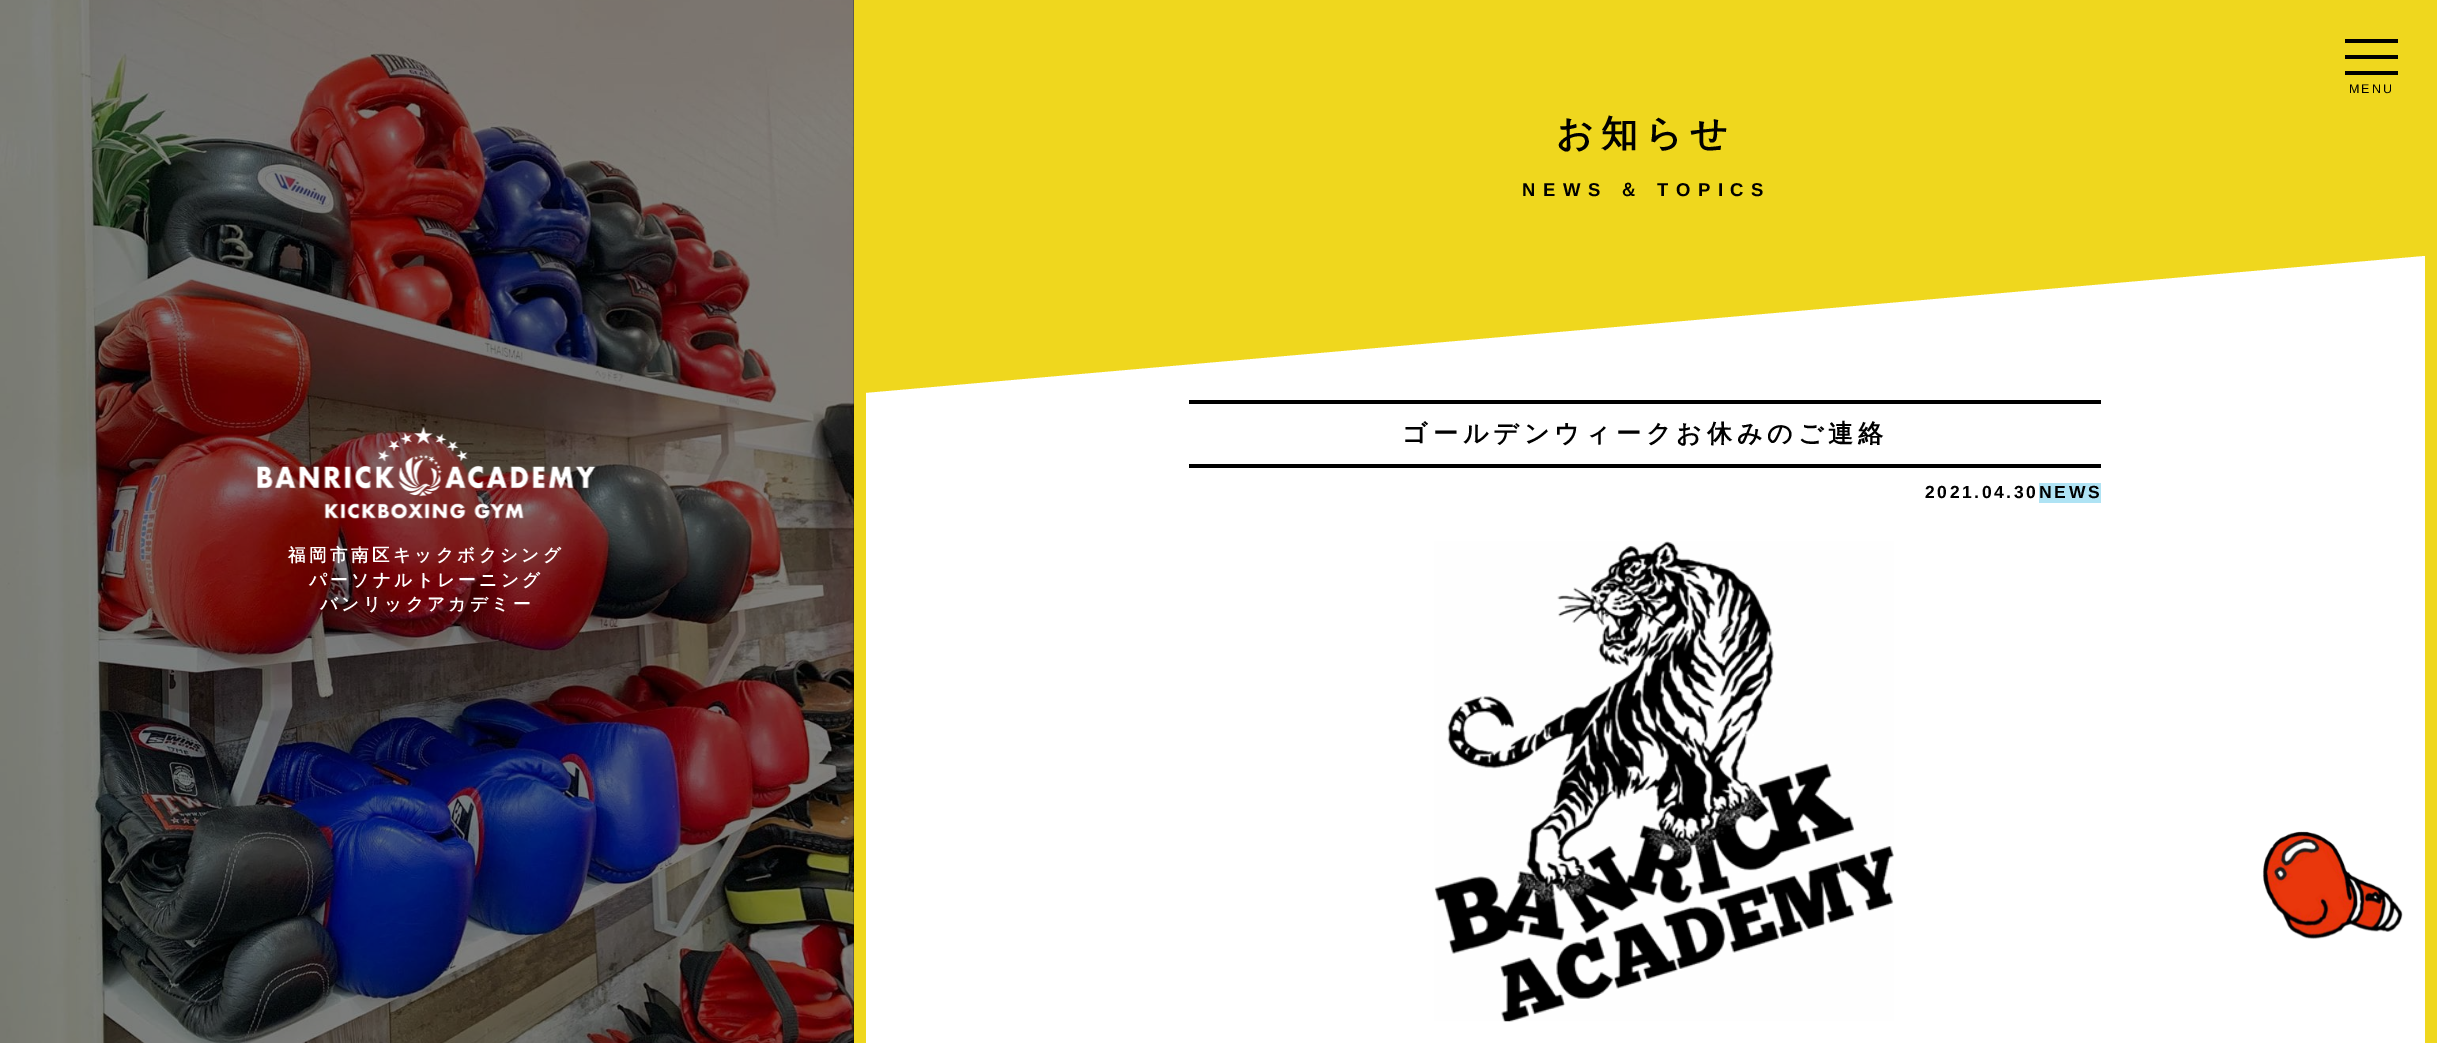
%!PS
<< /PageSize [2437 1043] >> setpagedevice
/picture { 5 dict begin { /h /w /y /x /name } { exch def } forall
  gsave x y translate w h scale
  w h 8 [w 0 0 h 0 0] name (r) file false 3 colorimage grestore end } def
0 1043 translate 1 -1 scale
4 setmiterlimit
0.937 0.843 0.118 setrgbcolor
0 0 2437 1043 rectfill
0 setgray
2345 39 53 4 rectfill
2345 55 53 4 rectfill
2345 71 53 4 rectfill
/LiberationSans-Regular [12.5 0 0 -12.5 0 0] selectfont
2349 93 moveto 2 0 (MENU) ashow
/WenQuanYiZenHei-Bold [36.75 0 0 -36.75 0 0] selectfont
1556 146 moveto 7.5 0 (お知らせ) ashow
/LiberationSans-Bold [18.5 0 0 -18.5 0 0] selectfont
1522 196 moveto 7.5 0 (NEWS) ashow
/WenQuanYiZenHei-Bold [18.5 0 0 -18.5 0 0] selectfont
1619 196 moveto 7.5 0 (＆) ashow
/LiberationSans-Bold [18.5 0 0 -18.5 0 0] selectfont
1657 196 moveto 7.5 0 (TOPICS) ashow
1 setgray
newpath 866 393 moveto 2425 256 lineto 2425 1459 lineto 866 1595 lineto closepath fill
0 setgray
1189 400 912 4 rectfill
1189 464 912 4 rectfill
/WenQuanYiZenHei-Bold [25 0 0 -25 0 0] selectfont
1402 442 moveto 5 0 (ゴールデンウィークお休みのご連絡) ashow
/LiberationSans-Bold [17.5 0 0 -17.5 0 0] selectfont
1925 498 moveto 2.6 0 (2021.04.30) ashow
0.686 0.89 0.957 setrgbcolor
2039 483 62 20 rectfill
0 setgray
2039 498 moveto 2.6 0 (NEWS) ashow
(img1.rgb) 1434 541 460 481 picture
0 0 854 1043 rectfill
(img2.rgb) 0 0 854 1043 picture
(img3.rgb) 257 427 339 92 picture
/WenQuanYiZenHei-Bold [17.5 0 0 -17.5 0 0] selectfont
1 setgray
288 561 moveto 3.5 0 (福岡市南区キックボクシング) ashow
309 586 moveto 3.5 0 (パーソナルトレーニング) ashow
320 610 moveto 3.5 0 (バンリックアカデミー) ashow
(img4.rgb) 2262 831 141 108 picture
showpage
